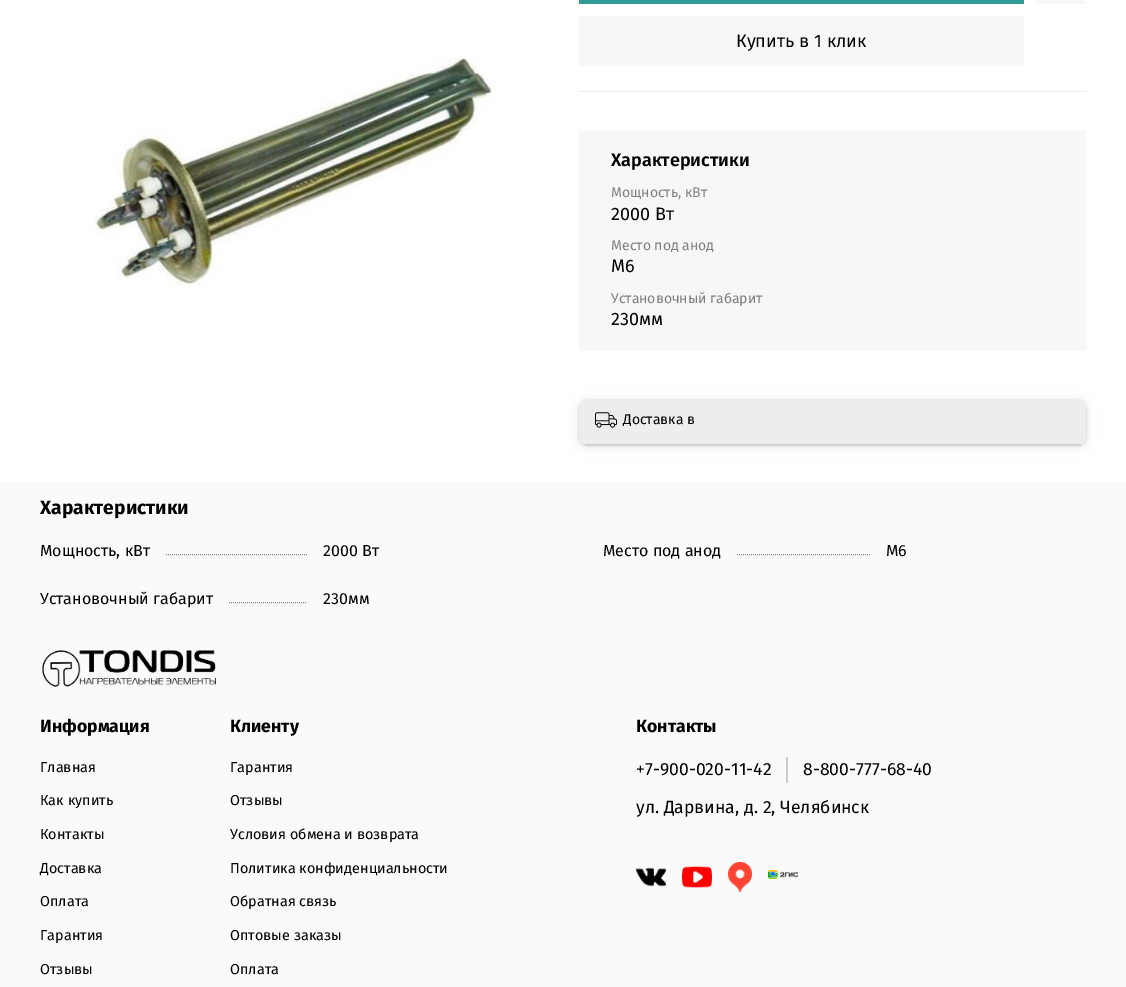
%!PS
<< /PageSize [1126 987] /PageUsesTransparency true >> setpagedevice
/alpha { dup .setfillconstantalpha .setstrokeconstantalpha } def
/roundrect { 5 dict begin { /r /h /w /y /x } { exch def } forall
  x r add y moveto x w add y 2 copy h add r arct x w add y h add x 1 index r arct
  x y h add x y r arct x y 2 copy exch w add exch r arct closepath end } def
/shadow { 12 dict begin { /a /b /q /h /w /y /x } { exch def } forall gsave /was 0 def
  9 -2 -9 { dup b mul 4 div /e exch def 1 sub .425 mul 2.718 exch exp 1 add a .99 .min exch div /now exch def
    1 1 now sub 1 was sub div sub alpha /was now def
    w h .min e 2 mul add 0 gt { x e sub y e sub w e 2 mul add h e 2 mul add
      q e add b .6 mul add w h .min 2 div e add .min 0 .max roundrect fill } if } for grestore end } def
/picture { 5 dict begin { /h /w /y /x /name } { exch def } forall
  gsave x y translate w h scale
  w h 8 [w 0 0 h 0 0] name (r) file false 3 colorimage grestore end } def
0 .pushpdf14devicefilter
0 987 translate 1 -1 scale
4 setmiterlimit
1 setgray
0 0 1126 987 rectfill
0.969 setgray
1036 0 50 4 rectfill
0.184 0.612 0.6 setrgbcolor
579 0 445 4 rectfill
0.969 setgray
579 16 445 50 rectfill
/FiraSans-Regular [18 0 0 -18 0 0] selectfont
0 setgray
736 47 moveto (Купить в 1 клик) show
0.929 setgray
579 91 507 1 rectfill
(img1.rgb) 95 58 398 227 picture
0.969 setgray
579 131 507 220 rectfill
/FiraSans-SemiBold [18 0 0 -18 0 0] selectfont
0 setgray
611 166 moveto (Характеристики) show
/FiraSans-Regular [14 0 0 -14 0 0] selectfont
0.502 setgray
611 197 moveto (Мощность, кВт) show
/FiraSans-Regular [18 0 0 -18 0 0] selectfont
0 setgray
611 220 moveto (2000 Вт) show
/FiraSans-Regular [14 0 0 -14 0 0] selectfont
0.502 setgray
611 250 moveto (Место под анод) show
/FiraSans-Regular [18 0 0 -18 0 0] selectfont
0 setgray
611 272 moveto (М6) show
/FiraSans-Regular [14 0 0 -14 0 0] selectfont
0.502 setgray
611 303 moveto (Установочный габарит) show
/FiraSans-Regular [18 0 0 -18 0 0] selectfont
0 setgray
611 325 moveto (230мм) show
579 401 507 45 8 8 0.05 shadow
579 401 507 45 8 4 0.05 shadow
579 401 507 45 8 2 0.05 shadow
579 401 507 45 8 1 0.05 shadow
579 400 507 45 8 0.5 0.05 shadow
0.929 setgray
newpath 587 399 moveto 1078 399 lineto 1082.5 399 1086 402.5 1086 407 curveto 1086 444 lineto 579 444 lineto 579 407 lineto 579 402.5 582.5 399 587 399 curveto closepath fill
(img2.rgb) 595 412 22 16 picture
/FiraSans-Regular [14 0 0 -14 0 0] selectfont
0 setgray
623 424 moveto (Доставка в) show
0.98 setgray
0 482 1126 505 rectfill
/FiraSans-Bold [19.25 0 0 -19.25 0 0] selectfont
0 setgray
40 514 moveto (Характеристики) show
/FiraSans-Regular [16 0 0 -16 0 0] selectfont
40 556 moveto (Мощность, кВт) show
0.502 setgray
[1 1] 0 setdash
newpath 166 554.5 moveto 307 554.5 lineto stroke
0 setgray
323 556 moveto (2000 Вт) show
603 556 moveto (Место под анод) show
0.502 setgray
newpath 737 554.5 moveto 870 554.5 lineto stroke
0 setgray
886 556 moveto (М6) show
40 604 moveto (Установочный габарит) show
0.502 setgray
newpath 229 602.5 moveto 307 602.5 lineto stroke
0 setgray
323 604 moveto (230мм) show
(img3.rgb) 42 650 174 37 picture
/FiraSans-Bold [17.6 0 0 -17.6 0 0] selectfont
40 732 moveto (Информация) show
/FiraSans-Regular [14.4 0 0 -14.4 0 0] selectfont
40 772 moveto (Главная) show
40 805 moveto (Как купить) show
40 839 moveto (Контакты) show
40 873 moveto (Доставка) show
40 906 moveto (Оплата) show
40 940 moveto (Гарантия) show
40 974 moveto (Отзывы) show
/FiraSans-Bold [17.6 0 0 -17.6 0 0] selectfont
230 732 moveto (Клиенту) show
/FiraSans-Regular [14.4 0 0 -14.4 0 0] selectfont
230 772 moveto (Гарантия) show
230 805 moveto (Отзывы) show
230 839 moveto (Условия обмена и возврата) show
230 873 moveto (Политика конфиденциальности) show
230 906 moveto (Обратная связь) show
230 940 moveto (Оптовые заказы) show
230 974 moveto (Оплата) show
/FiraSans-Bold [17.6 0 0 -17.6 0 0] selectfont
636 732 moveto (Контакты) show
0.8 setgray
786 757 2 26 rectfill
/FiraSans-Regular [17.6 0 0 -17.6 0 0] selectfont
0 setgray
636 775 moveto (+7-900-020-11-42) show
803 775 moveto (8-800-777-68-40) show
636 813 moveto (ул. Дарвина, д. 2, Челябинск) show
(img4.rgb) 636 867 30 20 picture
(img5.rgb) 682 866 30 22 picture
(img6.rgb) 728 862 24 30 picture
(img7.rgb) 768 870 30 9 picture
.poppdf14devicefilter showpage
